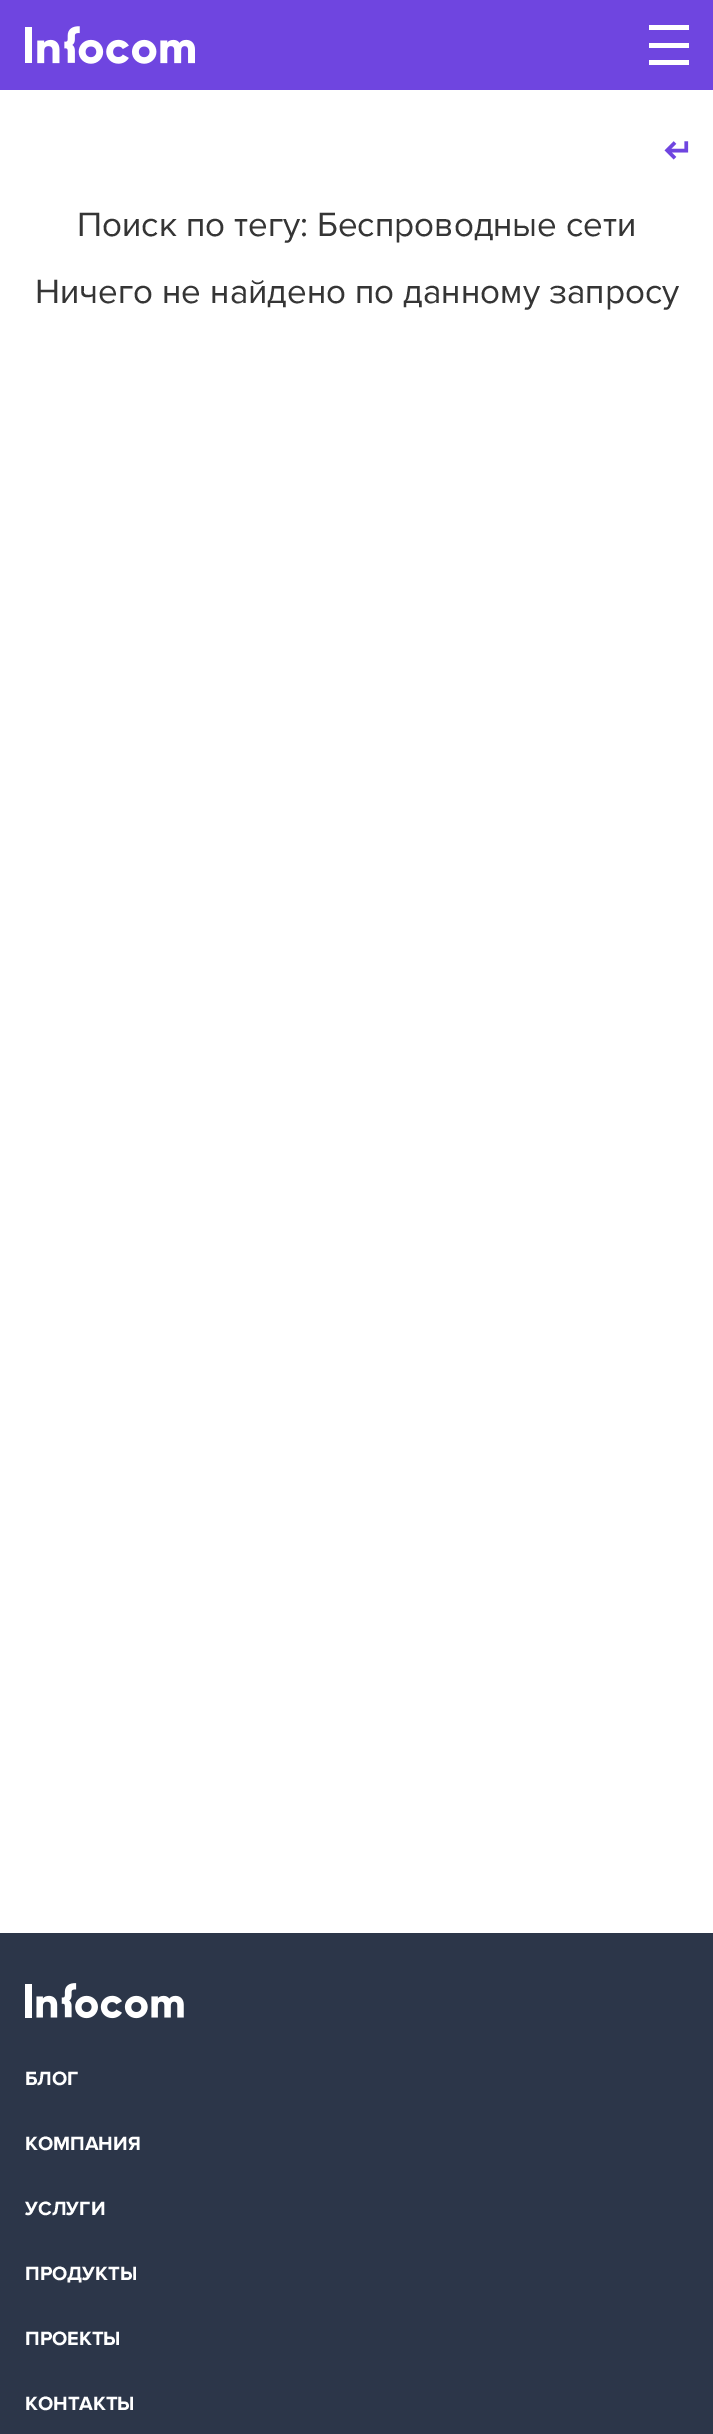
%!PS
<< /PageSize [713 2434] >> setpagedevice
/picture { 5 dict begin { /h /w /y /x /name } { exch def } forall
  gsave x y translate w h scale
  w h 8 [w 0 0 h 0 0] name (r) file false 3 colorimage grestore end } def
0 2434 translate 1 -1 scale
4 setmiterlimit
1 setgray
0 0 713 2434 rectfill
0.435 0.271 0.878 setrgbcolor
0 0 713 90 rectfill
(img1.rgb) 25 26 170 38 picture
1 setgray
649 25 40 5 rectfill
649 43 40 5 rectfill
649 60 40 5 rectfill
(img2.rgb) 664 141 25 19 picture
/ProximaNova-Regular [35 0 0 -35 0 0] selectfont
0.208 setgray
77 236 moveto (Поиск по тегу: Беспроводные сети) show
35 303 moveto (Ничего не найдено по данному запросу) show
0.173 0.212 0.286 setrgbcolor
0 1933 713 501 rectfill
(img3.rgb) 25 1983 159 36 picture
/ProximaNova-Bold [20 0 0 -20 0 0] selectfont
1 setgray
25 2085 moveto (БЛОГ) show
25 2150 moveto (КОМПАНИЯ) show
25 2215 moveto (УСЛУГИ) show
25 2280 moveto (ПРОДУКТЫ) show
25 2345 moveto (ПРОЕКТЫ) show
25 2410 moveto (КОНТАКТЫ) show
showpage
